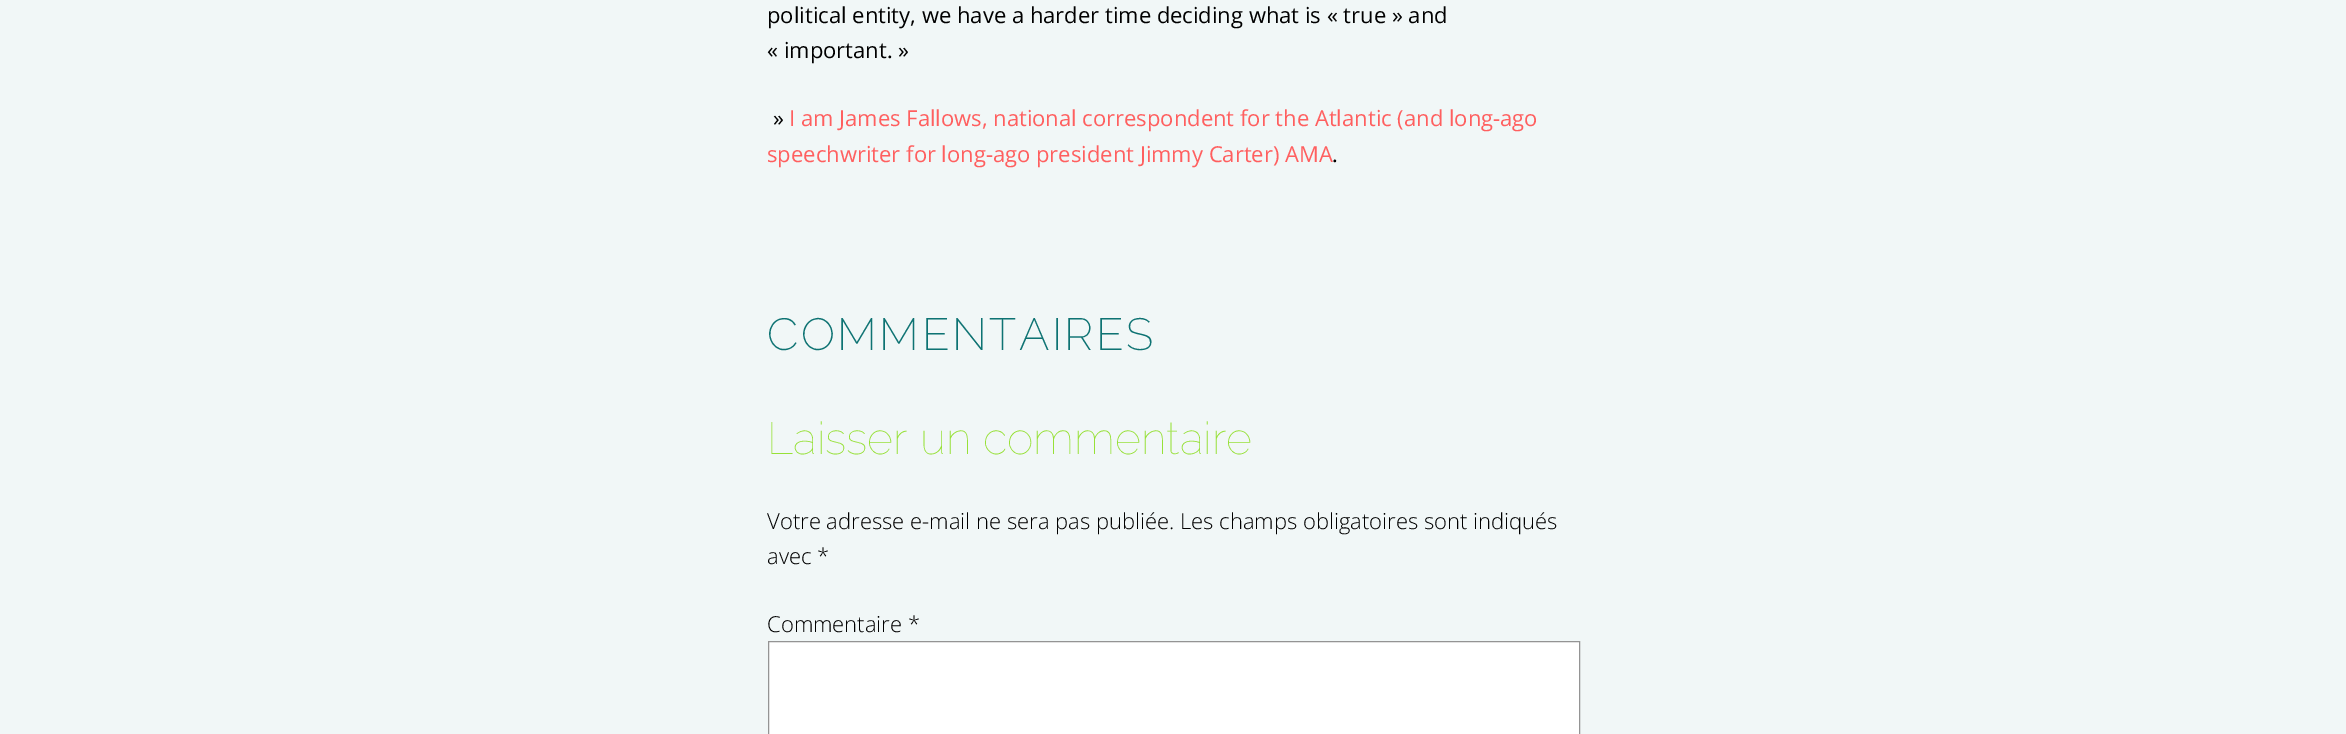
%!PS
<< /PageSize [2346 734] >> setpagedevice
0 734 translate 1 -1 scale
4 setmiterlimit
0.945 0.969 0.969 setrgbcolor
0 0 2346 734 rectfill
/OpenSans-Regular [22 0 0 -22 0 0] selectfont
0 setgray
767 23 moveto (political entity, we have a harder time deciding what is « true » and) show
767 58 moveto (« important. ») show
773 126 moveto (») show
1 0.373 0.373 setrgbcolor
789 126 moveto (I am James Fallows, national correspondent for the Atlantic \(and long-ago) show
767 162 moveto (speechwriter for long-ago president Jimmy Carter\) AMA) show
0 setgray
1332 162 moveto (.) show
/Raleway-ExtraLight [45 0 0 -45 0 0] selectfont
0.055 0.451 0.451 setrgbcolor
767 350 moveto 2.5 0 (COMMENTAIRES) ashow
/Raleway-Thin [45 0 0 -45 0 0] selectfont
0.592 0.882 0.216 setrgbcolor
767 454 moveto (Laisser un commentaire) show
/OpenSans-Light [22 0 0 -22 0 0] selectfont
0 setgray
767 529 moveto (Votre adresse e-mail ne sera pas publiée. Les champs obligatoires sont indiqués) show
767 564 moveto (avec *) show
767 632 moveto (Commentaire *) show
1 setgray
newpath 768.5 641.5 moveto 1579.5 641.5 lineto 1579.5 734.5 lineto 768.5 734.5 lineto closepath gsave fill grestore
0.58 setgray
stroke
showpage
